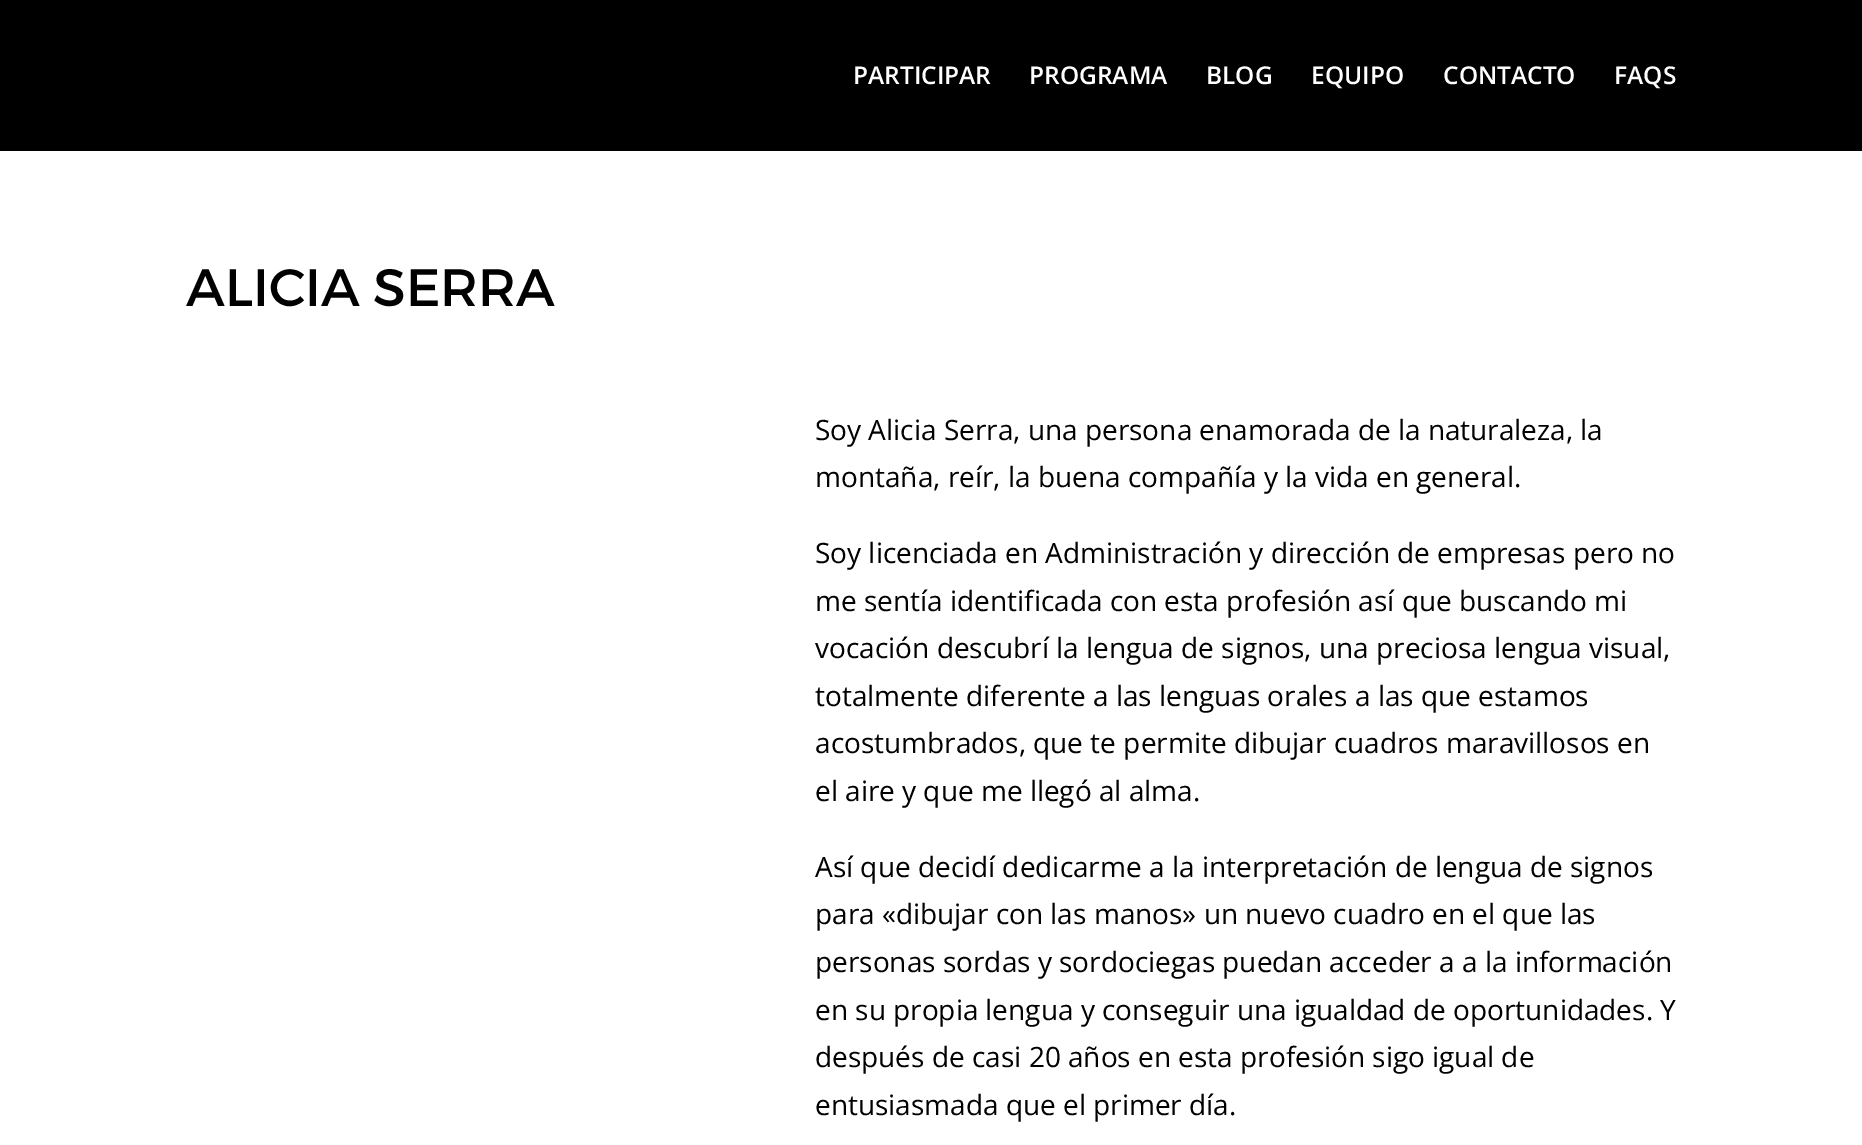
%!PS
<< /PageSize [1862 1145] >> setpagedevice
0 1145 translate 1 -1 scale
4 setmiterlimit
1 setgray
0 0 1862 1145 rectfill
0 setgray
0 0 1862 151 rectfill
/OpenSans-SemiBold [24.5 0 0 -24.5 0 0] selectfont
1 setgray
853 84 moveto (PARTICIPAR) show
1029 84 moveto (PROGRAMA) show
1206 84 moveto (BLOG) show
1311 84 moveto (EQUIPO) show
1443 84 moveto (CONTACTO) show
1614 84 moveto (FAQS) show
/Montserrat-Regular [52.5 0 0 -52.5 0 0] selectfont
0 setgray
186 306 moveto (ALICIA SERRA) show
/OpenSans-Regular [28 0 0 -28 0 0] selectfont
815 440 moveto (Soy Alicia Serra, una persona enamorada de la naturaleza, la) show
815 487 moveto (montaña, reír, la buena compañía y la vida en general.) show
815 563 moveto (Soy licenciada en Administración y dirección de empresas pero no) show
815 611 moveto (me sentía identificada con esta profesión así que buscando mi) show
815 658 moveto (vocación descubrí la lengua de signos, una preciosa lengua visual,) show
815 706 moveto (totalmente diferente a las lenguas orales a las que estamos) show
815 753 moveto (acostumbrados, que te permite dibujar cuadros maravillosos en) show
815 801 moveto (el aire y que me llegó al alma.) show
815 877 moveto (Así que decidí dedicarme a la interpretación de lengua de signos) show
815 924 moveto (para «dibujar con las manos» un nuevo cuadro en el que las) show
815 972 moveto (personas sordas y sordociegas puedan acceder a a la información) show
815 1020 moveto (en su propia lengua y conseguir una igualdad de oportunidades. Y) show
815 1067 moveto (después de casi 20 años en esta profesión sigo igual de) show
815 1115 moveto (entusiasmada que el primer día.) show
showpage
